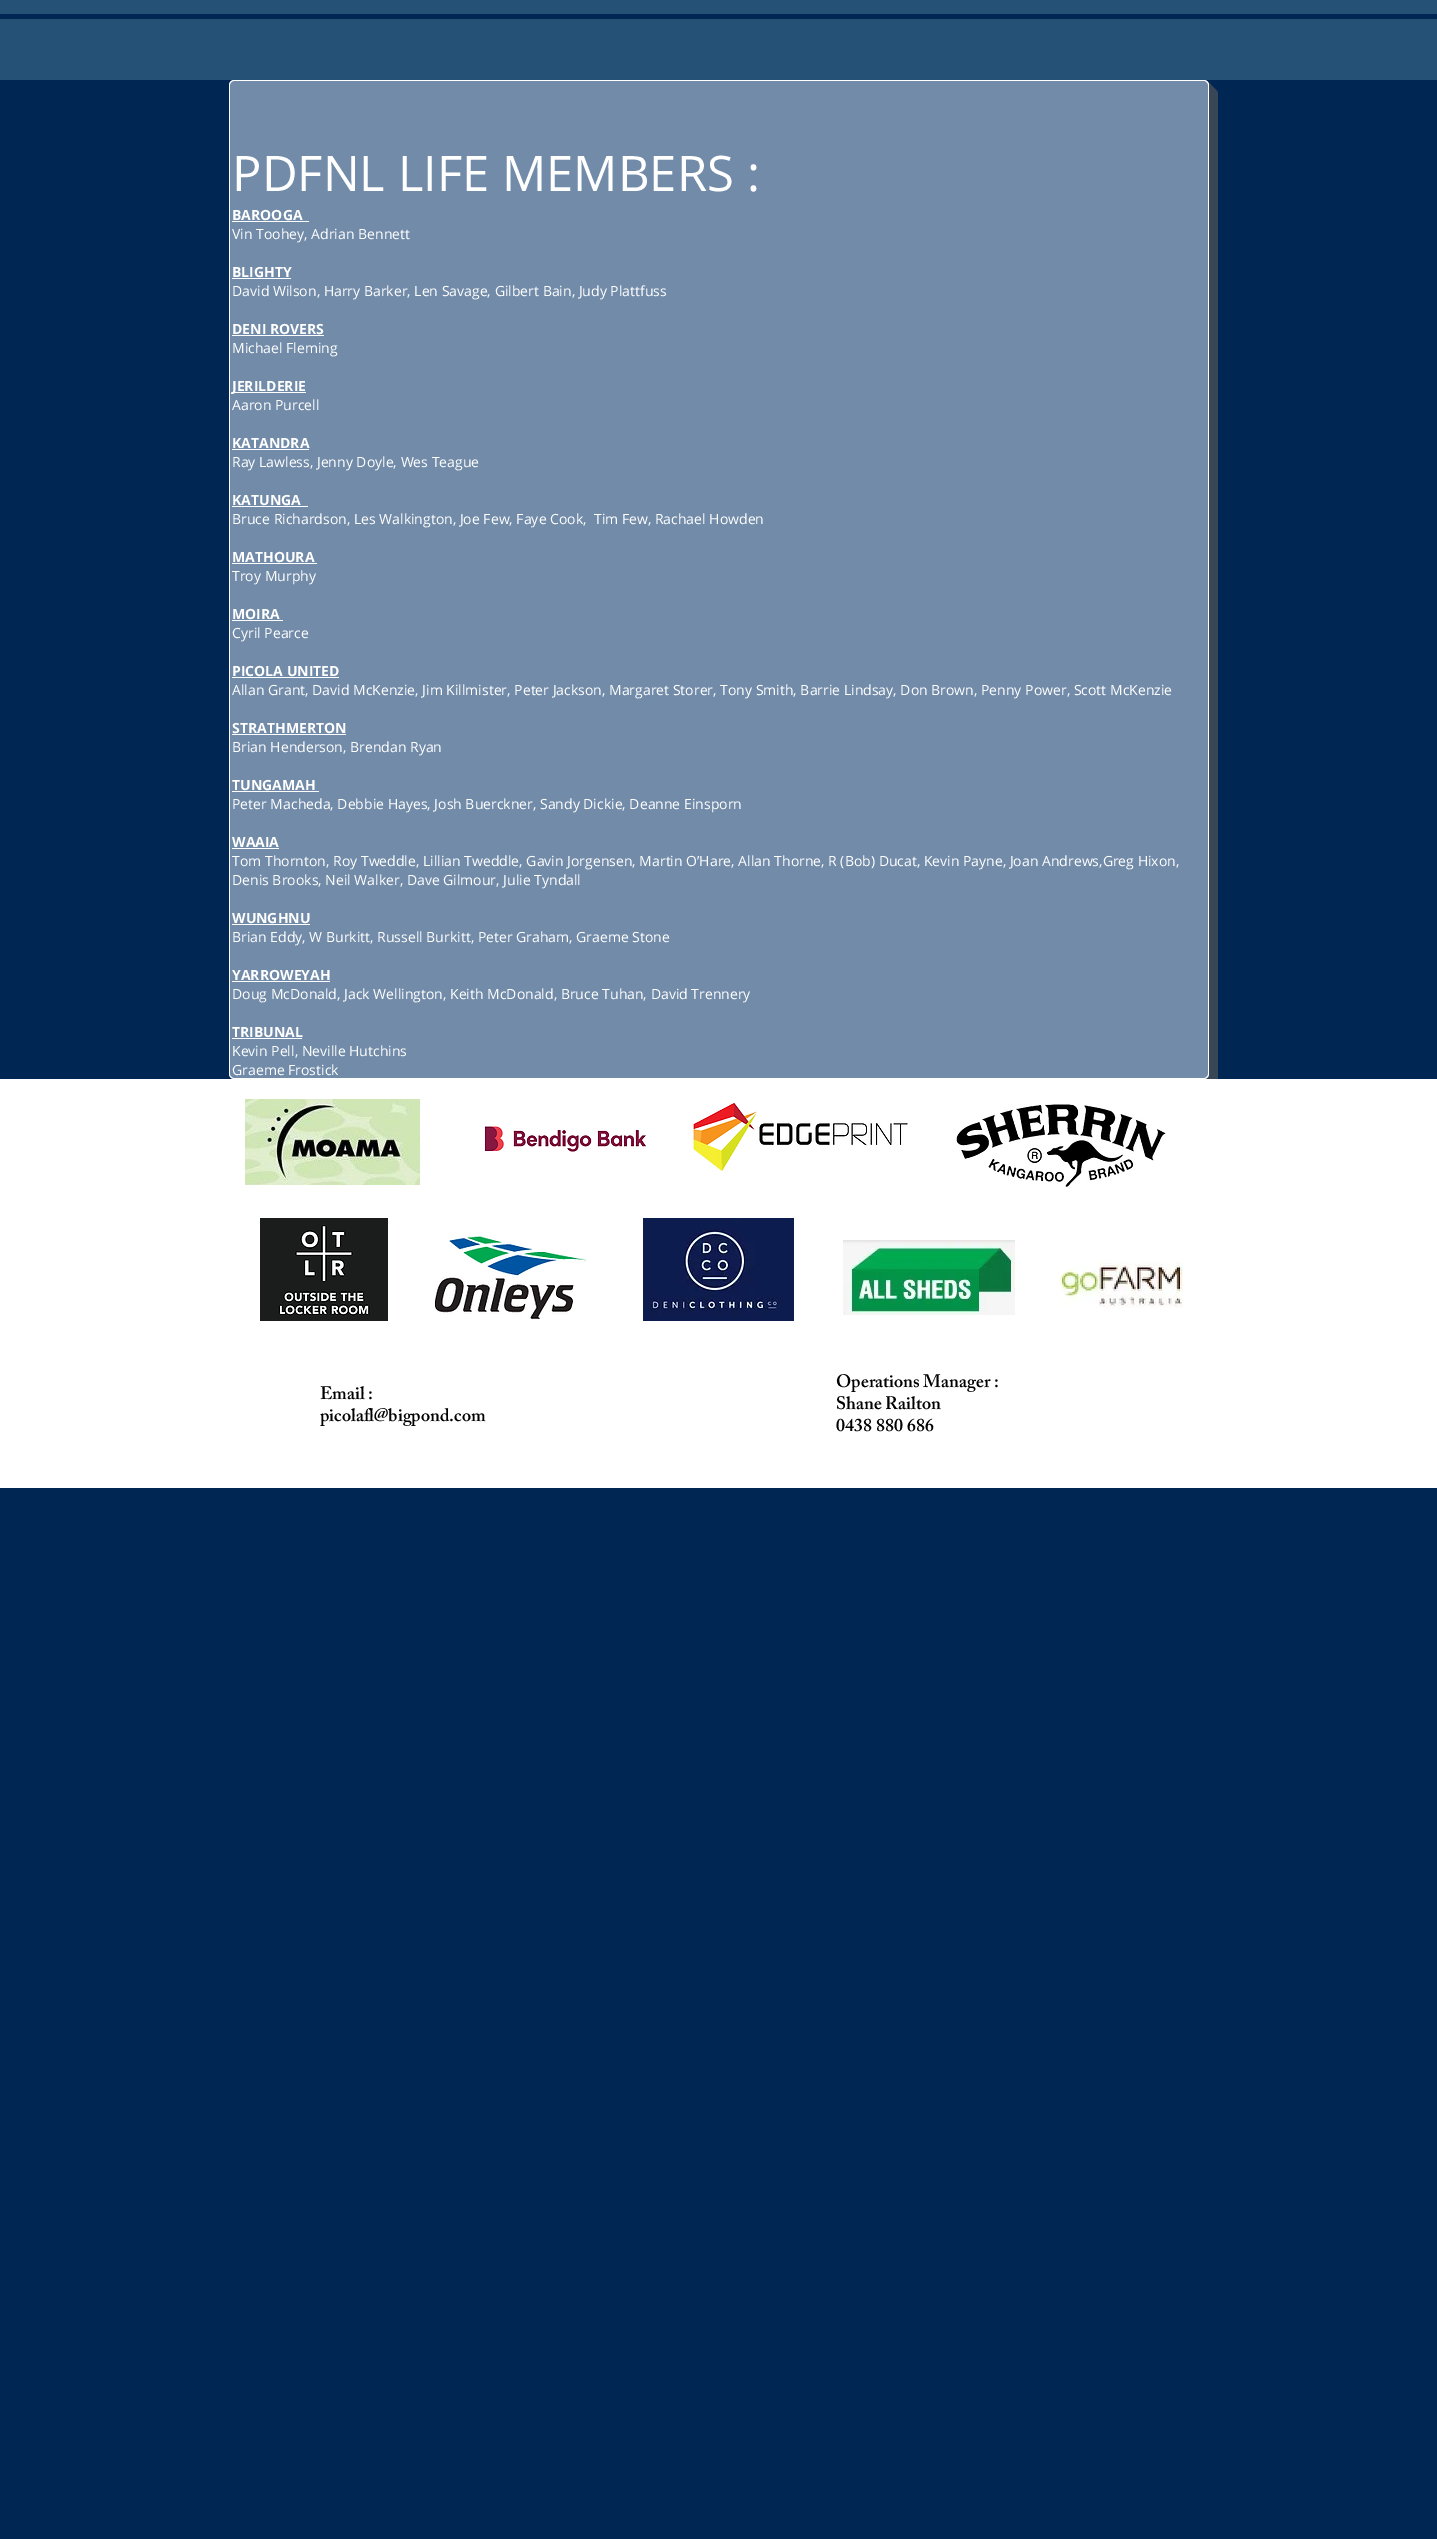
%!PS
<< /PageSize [1437 2539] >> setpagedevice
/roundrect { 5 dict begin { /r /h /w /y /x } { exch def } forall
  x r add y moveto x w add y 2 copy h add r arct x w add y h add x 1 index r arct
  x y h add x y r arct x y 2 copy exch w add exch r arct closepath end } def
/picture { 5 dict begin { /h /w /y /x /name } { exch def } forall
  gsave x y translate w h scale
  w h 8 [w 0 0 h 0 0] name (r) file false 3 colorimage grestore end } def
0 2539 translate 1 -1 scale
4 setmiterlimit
0 0.153 0.329 setrgbcolor
0 0 1437 2539 rectfill
0.149 0.318 0.463 setrgbcolor
0 0 1437 80 rectfill
0 0.153 0.329 setrgbcolor
0 14 1437 5 rectfill
0.224 0.275 0.333 setrgbcolor
newpath 238 1079 moveto 238 1083 lineto 238 1086 240 1088 243 1088 curveto 1213 1088 lineto 1216 1088 1218 1086 1218 1083 curveto 1218 94 lineto 1218 91 1216 89 1213 89 curveto 1209 89 lineto 1209 1074 lineto 1209 1077 1207 1079 1204 1079 curveto closepath fill
newpath 236 1079 moveto 236 1081 lineto 236 1084 238 1086 241 1086 curveto 1211 1086 lineto 1214 1086 1216 1084 1216 1081 curveto 1216 92 lineto 1216 89 1214 87 1211 87 curveto 1209 87 lineto 1209 1074 lineto 1209 1077 1207 1079 1204 1079 curveto closepath fill
newpath 234 1079 moveto 234 1082 236 1084 239 1084 curveto 1209 1084 lineto 1212 1084 1214 1082 1214 1079 curveto 1214 90 lineto 1214 87 1212 85 1209 85 curveto 1209 1074 lineto 1209 1077 1207 1079 1204 1079 curveto closepath fill
newpath 232 1079 moveto 233 1081 235 1082 237 1082 curveto 1207 1082 lineto 1210 1082 1212 1080 1212 1077 curveto 1212 88 lineto 1212 86 1211 84 1209 83 curveto 1209 1074 lineto 1209 1077 1207 1079 1204 1079 curveto closepath fill
newpath 231 1078 moveto 232 1079 233 1080 235 1080 curveto 1205 1080 lineto 1208 1080 1210 1078 1210 1075 curveto 1210 86 lineto 1210 84 1209 83 1208 82 curveto 1209 83 1209 84 1209 85 curveto 1209 1074 lineto 1209 1077 1207 1079 1204 1079 curveto 234 1079 lineto 233 1079 232 1079 231 1078 curveto closepath fill
1 setgray
229 80 980 999 5 roundrect fill
0.443 0.545 0.663 setrgbcolor
230 81 978 997 5 roundrect fill
/OpenSans-Regular [49 0 0 -49 0 0] selectfont
1 setgray
232 191 moveto (PDFNL LIFE MEMBERS :) show
/OpenSans-Bold [14 0 0 -14 0 0] selectfont
232 220 moveto (BAROOGA) show
232 221 77 1 rectfill
/OpenSans-Regular [14 0 0 -14 0 0] selectfont
232 239 moveto (Vin Toohey, Adrian Bennett) show
/OpenSans-Bold [14 0 0 -14 0 0] selectfont
232 277 moveto (BLIGHTY) show
232 278 59 1 rectfill
/OpenSans-Regular [14 0 0 -14 0 0] selectfont
232 296 moveto (David Wilson, Harry Barker, Len Savage, Gilbert Bain, Judy Plattfuss) show
/OpenSans-Bold [14 0 0 -14 0 0] selectfont
232 334 moveto (DENI ROVERS) show
232 335 92 1 rectfill
/OpenSans-Regular [14 0 0 -14 0 0] selectfont
232 353 moveto (Michael Fleming) show
232 392 74 1 rectfill
/OpenSans-Bold [14 0 0 -14 0 0] selectfont
232 391 moveto (JERILDERIE) show
/OpenSans-Regular [14 0 0 -14 0 0] selectfont
232 410 moveto (Aaron Purcell) show
/OpenSans-Bold [14 0 0 -14 0 0] selectfont
232 448 moveto (KATANDRA) show
232 449 77 1 rectfill
/OpenSans-Regular [14 0 0 -14 0 0] selectfont
232 467 moveto (Ray Lawless, Jenny Doyle, Wes Teague) show
/OpenSans-Bold [14 0 0 -14 0 0] selectfont
232 505 moveto (KATUNGA) show
232 506 76 1 rectfill
/OpenSans-Regular [14 0 0 -14 0 0] selectfont
232 524 moveto (Bruce Richardson, Les Walkington, Joe Few, Faye Cook,  Tim Few, Rachael Howden) show
/OpenSans-Bold [14 0 0 -14 0 0] selectfont
232 562 moveto (MATHOURA) show
232 563 85 1 rectfill
/OpenSans-Regular [14 0 0 -14 0 0] selectfont
232 581 moveto (Troy Murphy) show
/OpenSans-Bold [14 0 0 -14 0 0] selectfont
232 619 moveto (MOIRA) show
232 620 51 1 rectfill
/OpenSans-Regular [14 0 0 -14 0 0] selectfont
232 638 moveto (Cyril Pearce) show
/OpenSans-Bold [14 0 0 -14 0 0] selectfont
232 676 moveto (PICOLA UNITED) show
232 677 107 1 rectfill
/OpenSans-Regular [14 0 0 -14 0 0] selectfont
232 695 moveto (Allan Grant, David McKenzie, Jim Killmister, Peter Jackson, Margaret Storer, Tony Smith, Barrie Lindsay, Don Brown, Penny Power, Scott McKenzie) show
/OpenSans-Bold [14 0 0 -14 0 0] selectfont
232 733 moveto (STRATHMERTON) show
232 734 114 1 rectfill
/OpenSans-Regular [14 0 0 -14 0 0] selectfont
232 752 moveto (Brian Henderson, Brendan Ryan) show
/OpenSans-Bold [14 0 0 -14 0 0] selectfont
232 790 moveto (TUNGAMAH) show
232 791 87 1 rectfill
/OpenSans-Regular [14 0 0 -14 0 0] selectfont
232 809 moveto (Peter Macheda, Debbie Hayes, Josh Buerckner, Sandy Dickie, Deanne Einsporn) show
/OpenSans-Bold [14 0 0 -14 0 0] selectfont
232 847 moveto (WAAIA) show
232 848 47 1 rectfill
/OpenSans-Regular [14 0 0 -14 0 0] selectfont
232 866 moveto (Tom Thornton, Roy Tweddle, Lillian Tweddle, Gavin Jorgensen, Martin O’Hare, Allan Thorne, R \(Bob\) Ducat, Kevin Payne, Joan Andrews,Greg Hixon,) show
232 885 moveto (Denis Brooks, Neil Walker, Dave Gilmour, Julie Tyndall) show
/OpenSans-Bold [14 0 0 -14 0 0] selectfont
232 923 moveto (WUNGHNU) show
232 924 78 1 rectfill
/OpenSans-Regular [14 0 0 -14 0 0] selectfont
232 942 moveto (Brian Eddy, W Burkitt, Russell Burkitt, Peter Graham, Graeme Stone) show
/OpenSans-Bold [14 0 0 -14 0 0] selectfont
232 980 moveto (YARROWEYAH) show
232 981 98 1 rectfill
/OpenSans-Regular [14 0 0 -14 0 0] selectfont
232 999 moveto (Doug McDonald, Jack Wellington, Keith McDonald, Bruce Tuhan, David Trennery) show
/OpenSans-Bold [14 0 0 -14 0 0] selectfont
232 1037 moveto (TRIBUNAL) show
232 1038 70 1 rectfill
/OpenSans-Regular [14 0 0 -14 0 0] selectfont
232 1056 moveto (Kevin Pell, Neville Hutchins) show
232 1075 moveto (Graeme Frostick) show
0 1079 1437 409 rectfill
(img1.rgb) 245 1099 175 86 picture
(img2.rgb) 484 1126 162 26 picture
(img3.rgb) 693 1103 215 68 picture
(img4.rgb) 956 1104 210 83 picture
(img5.rgb) 260 1218 128 103 picture
(img6.rgb) 434 1235 153 85 picture
(img7.rgb) 643 1218 151 103 picture
(img8.rgb) 843 1240 172 75 picture
(img9.rgb) 1055 1261 128 47 picture
/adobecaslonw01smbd-SemiBold [18 0 0 -18 0 0] selectfont
0 setgray
320 1399 moveto (Email :) show
320 1421 moveto (picolafl@bigpond.com) show
836 1387 moveto (Operations Manager :) show
836 1409 moveto (Shane Railton) show
836 1431 moveto (0438 880 686) show
showpage
